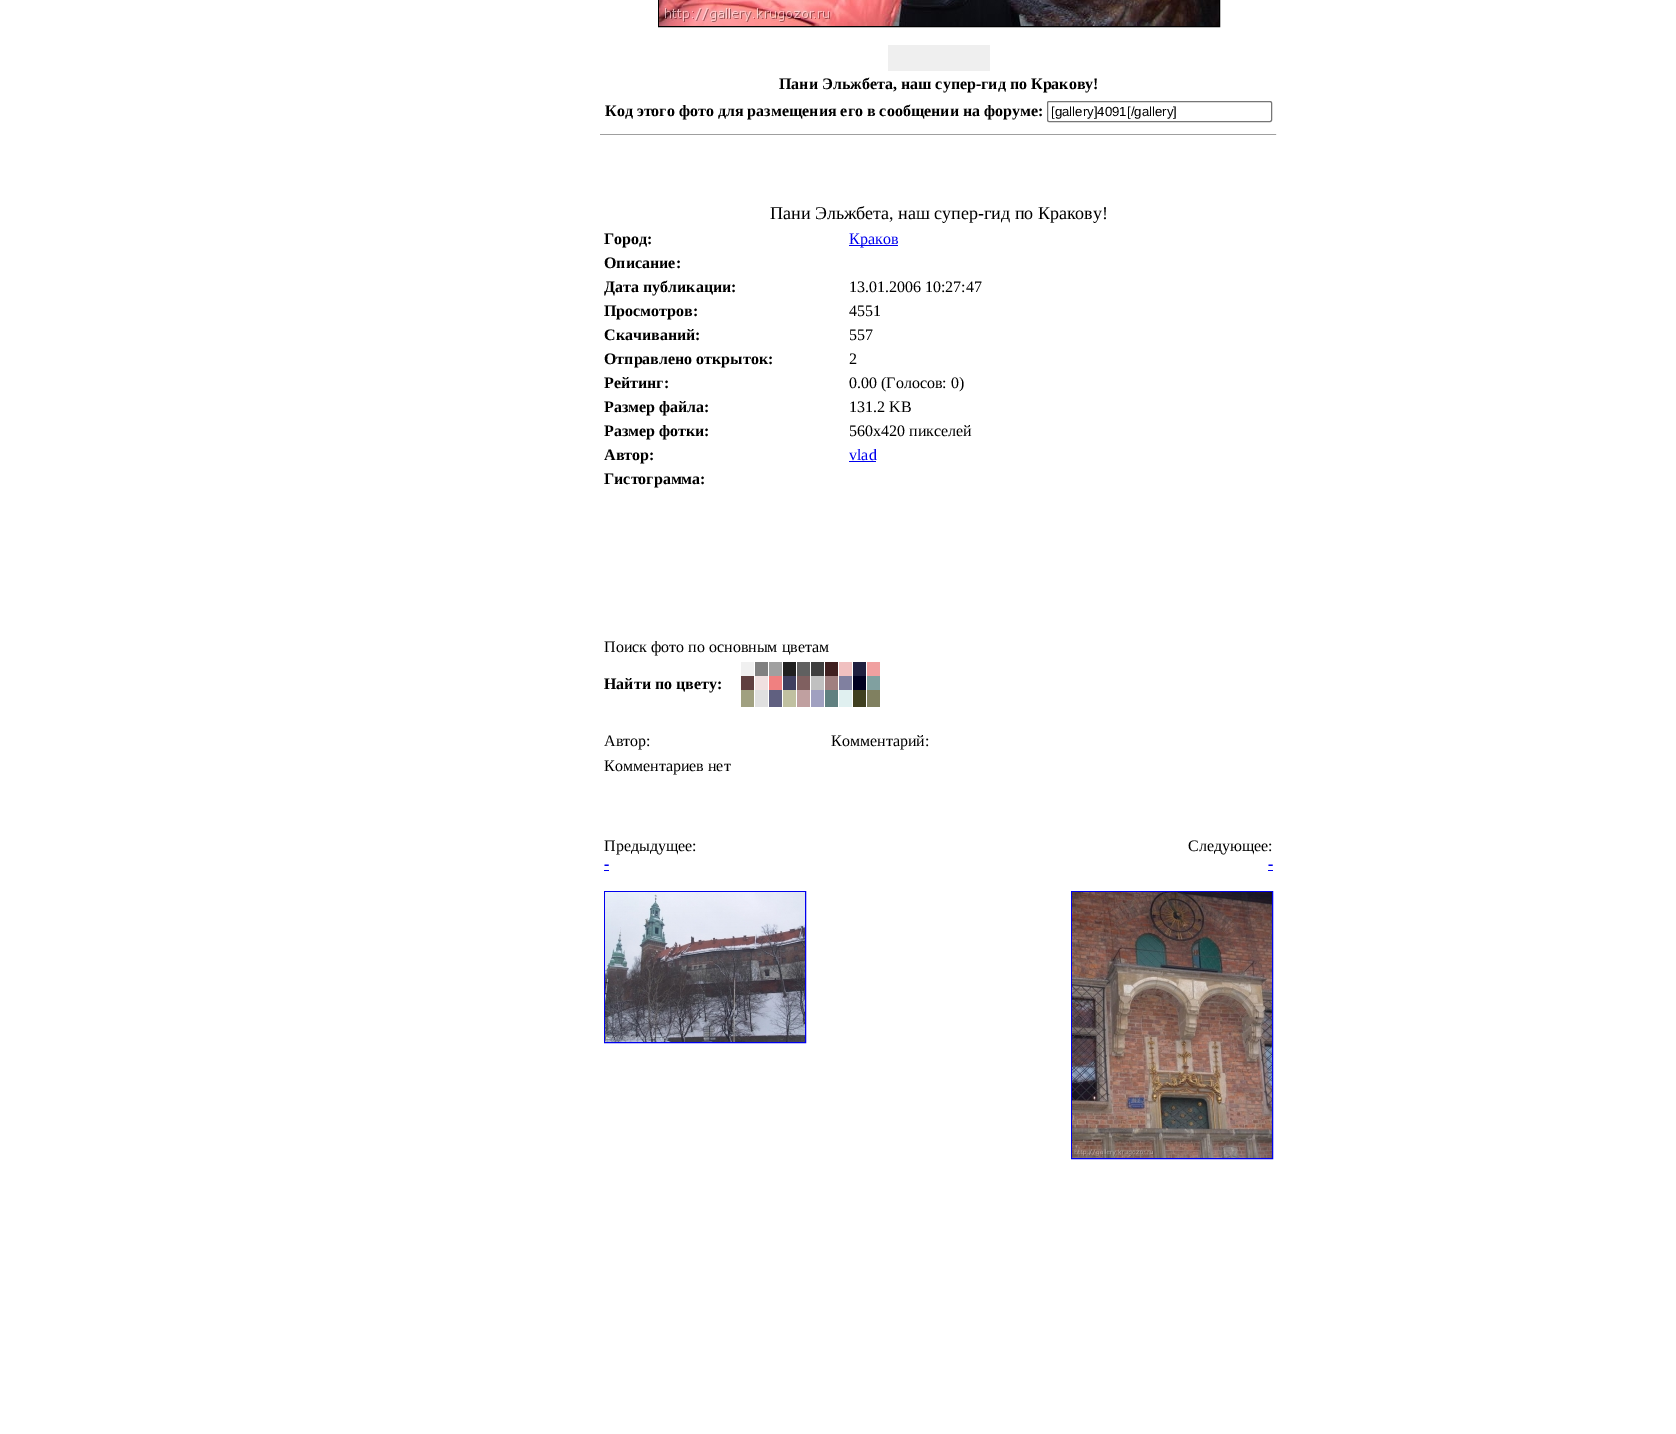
%!PS
<< /PageSize [1676 1434] >> setpagedevice
/roundrect { 5 dict begin { /r /h /w /y /x } { exch def } forall
  x r add y moveto x w add y 2 copy h add r arct x w add y h add x 1 index r arct
  x y h add x y r arct x y 2 copy exch w add exch r arct closepath end } def
/picture { 5 dict begin { /h /w /y /x /name } { exch def } forall
  gsave x y translate w h scale
  w h 8 [w 0 0 h 0 0] name (r) file false 3 colorimage grestore end } def
0 1434 translate 1 -1 scale
4 setmiterlimit
1 setgray
0 0 1676 1434 rectfill
0 setgray
658.5 -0.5 561 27 rectstroke
(img1.rgb) 659 0 560 26 picture
0.937 setgray
888 45 102 26 rectfill
/LiberationSerif-Bold [16 0 0 -16 0 0] selectfont
0 setgray
779 89 moveto (Пани Эльжбета, наш супер-гид по Кракову!) show
605 116 moveto (Код этого фото для размещения его в сообщении на форуме:) show
0.463 setgray
1047.5 101.5 224 20 1.5 roundrect stroke
/LiberationSans-Regular [13.25 0 0 -13.25 0 0] selectfont
0 setgray
1051 116 moveto ([gallery]4091[/gallery]) show
0.624 setgray
600 134 677 1 rectfill
0.933 setgray
1276 134 1 1 rectfill
/LiberationSerif-Regular [18 0 0 -18 0 0] selectfont
0 setgray
770 219 moveto (Пани Эльжбета, наш супер-гид по Кракову!) show
/LiberationSerif-Bold [16 0 0 -16 0 0] selectfont
604 244 moveto (Город:) show
0 0 0.933 setrgbcolor
849 245 49 1 rectfill
/LiberationSerif-Regular [16 0 0 -16 0 0] selectfont
849 244 moveto (Краков) show
/LiberationSerif-Bold [16 0 0 -16 0 0] selectfont
0 setgray
604 268 moveto (Описание:) show
604 292 moveto (Дата публикации:) show
/LiberationSerif-Regular [16 0 0 -16 0 0] selectfont
849 292 moveto (13.01.2006 10:27:47) show
/LiberationSerif-Bold [16 0 0 -16 0 0] selectfont
604 316 moveto (Просмотров:) show
/LiberationSerif-Regular [16 0 0 -16 0 0] selectfont
849 316 moveto (4551) show
/LiberationSerif-Bold [16 0 0 -16 0 0] selectfont
604 340 moveto (Скачиваний:) show
/LiberationSerif-Regular [16 0 0 -16 0 0] selectfont
849 340 moveto (557) show
/LiberationSerif-Bold [16 0 0 -16 0 0] selectfont
604 364 moveto (Отправлено открыток:) show
/LiberationSerif-Regular [16 0 0 -16 0 0] selectfont
849 364 moveto (2) show
/LiberationSerif-Bold [16 0 0 -16 0 0] selectfont
604 388 moveto (Рейтинг:) show
/LiberationSerif-Regular [16 0 0 -16 0 0] selectfont
849 388 moveto (0.00 \(Голосов: 0\)) show
/LiberationSerif-Bold [16 0 0 -16 0 0] selectfont
604 412 moveto (Размер файла:) show
/LiberationSerif-Regular [16 0 0 -16 0 0] selectfont
849 412 moveto (131.2 KB) show
/LiberationSerif-Bold [16 0 0 -16 0 0] selectfont
604 436 moveto (Размер фотки:) show
/LiberationSerif-Regular [16 0 0 -16 0 0] selectfont
849 436 moveto (560x420 пикселей) show
/LiberationSerif-Bold [16 0 0 -16 0 0] selectfont
604 460 moveto (Автор:) show
/LiberationSerif-Regular [16 0 0 -16 0 0] selectfont
0 0 0.933 setrgbcolor
849 460 moveto (vlad) show
849 461 27 1 rectfill
/LiberationSerif-Bold [16 0 0 -16 0 0] selectfont
0 setgray
604 484 moveto (Гистограмма:) show
/LiberationSerif-Regular [16 0 0 -16 0 0] selectfont
604 652 moveto (Поиск фото по основным цветам) show
/LiberationSerif-Bold [16 0 0 -16 0 0] selectfont
604 689 moveto (Найти по цвету:) show
0.941 setgray
741 662 13 14 rectfill
0.502 setgray
755 662 13 14 rectfill
0.627 setgray
769 662 13 14 rectfill
0.125 setgray
783 662 13 14 rectfill
0.376 setgray
797 662 13 14 rectfill
0.251 setgray
811 662 13 14 rectfill
0.251 0.125 0.125 setrgbcolor
825 662 13 14 rectfill
0.941 0.753 0.753 setrgbcolor
839 662 13 14 rectfill
0.125 0.125 0.251 setrgbcolor
853 662 13 14 rectfill
0.941 0.627 0.627 setrgbcolor
867 662 13 14 rectfill
0.376 0.251 0.251 setrgbcolor
741 676 13 14 rectfill
0.941 0.878 0.878 setrgbcolor
755 676 13 14 rectfill
0.941 0.502 0.502 setrgbcolor
769 676 13 14 rectfill
0.251 0.251 0.376 setrgbcolor
783 676 13 14 rectfill
0.502 0.376 0.376 setrgbcolor
797 676 13 14 rectfill
0.753 setgray
811 676 13 14 rectfill
0.627 0.502 0.502 setrgbcolor
825 676 13 14 rectfill
0.502 0.502 0.627 setrgbcolor
839 676 13 14 rectfill
0 0 0.125 setrgbcolor
853 676 13 14 rectfill
0.502 0.627 0.627 setrgbcolor
867 676 13 14 rectfill
0.627 0.627 0.502 setrgbcolor
741 690 13 17 rectfill
0.878 setgray
755 690 13 17 rectfill
0.376 0.376 0.502 setrgbcolor
769 690 13 17 rectfill
0.753 0.753 0.627 setrgbcolor
783 690 13 17 rectfill
0.753 0.627 0.627 setrgbcolor
797 690 13 17 rectfill
0.627 0.627 0.753 setrgbcolor
811 690 13 17 rectfill
0.376 0.502 0.502 setrgbcolor
825 690 13 17 rectfill
0.878 0.941 0.941 setrgbcolor
839 690 13 17 rectfill
0.251 0.251 0.125 setrgbcolor
853 690 13 17 rectfill
0.502 0.502 0.376 setrgbcolor
867 690 13 17 rectfill
/LiberationSerif-Regular [16 0 0 -16 0 0] selectfont
0 setgray
604 746 moveto (Автор:) show
831 746 moveto (Комментарий:) show
604 771 moveto (Комментариев нет) show
604 851 moveto (Предыдущее:) show
/LiberationSerif-Bold [16 0 0 -16 0 0] selectfont
0 0 0.933 setrgbcolor
604 869 moveto (-) show
604 870 5 1 rectfill
604.5 891.5 201 151 rectstroke
(img2.rgb) 605 892 200 150 picture
/LiberationSerif-Regular [16 0 0 -16 0 0] selectfont
0 setgray
1188 851 moveto (Следующее:) show
/LiberationSerif-Bold [16 0 0 -16 0 0] selectfont
0 0 0.933 setrgbcolor
1268 869 moveto (-) show
1268 870 5 1 rectfill
1071.5 891.5 201 267 rectstroke
(img3.rgb) 1072 892 200 266 picture
showpage
